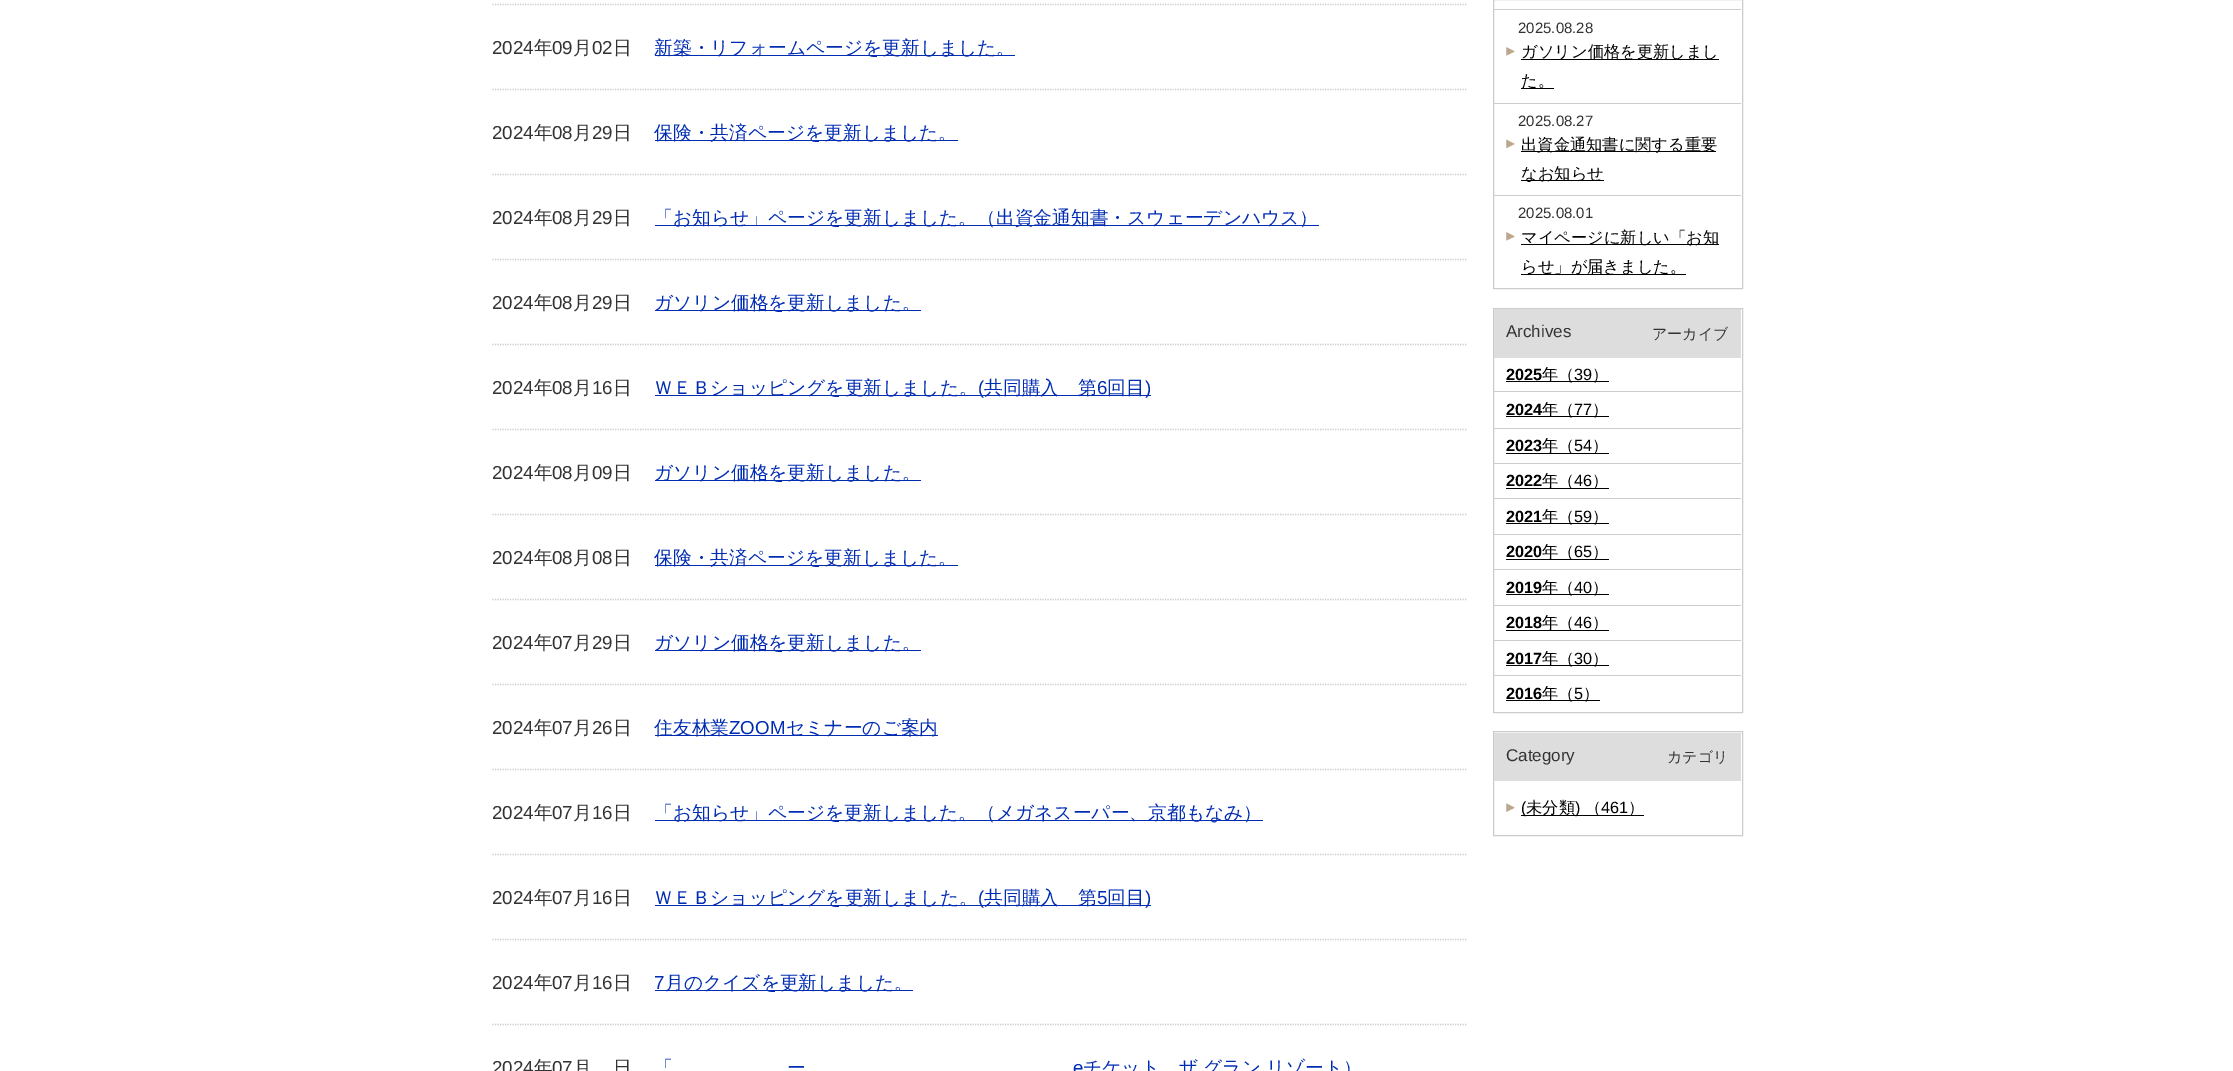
%!PS
<< /PageSize [2233 1071] >> setpagedevice
/picture { 5 dict begin { /h /w /y /x /name } { exch def } forall
  gsave x y translate w h scale
  w h 8 [w 0 0 h 0 0] name (r) file false 3 colorimage grestore end } def
0 1071 translate 1 -1 scale
4 setmiterlimit
1 setgray
0 0 2233 1071 rectfill
0.8 setgray
1.2 setlinewidth
[1.25 1.25] 0 setdash
newpath 492.5 4.5 moveto 1467.5 4.5 lineto stroke
/LiberationSans-Regular [18.75 0 0 -18.75 0 0] selectfont
0.2 setgray
492 54 moveto (2024) show
/WenQuanYiZenHei-Medium [18.75 0 0 -18.75 0 0] selectfont
534 54 moveto (年) show
/LiberationSans-Regular [18.75 0 0 -18.75 0 0] selectfont
552 54 moveto (09) show
/WenQuanYiZenHei-Medium [18.75 0 0 -18.75 0 0] selectfont
573 54 moveto (月) show
/LiberationSans-Regular [18.75 0 0 -18.75 0 0] selectfont
592 54 moveto (02) show
/WenQuanYiZenHei-Medium [18.75 0 0 -18.75 0 0] selectfont
613 54 moveto (日) show
0 0.173 0.698 setrgbcolor
655 55 360 1 rectfill
654 54 moveto (新築・リフォームページを更新しました。) show
0.8 setgray
newpath 492.5 89.5 moveto 1467.5 89.5 lineto stroke
/LiberationSans-Regular [18.75 0 0 -18.75 0 0] selectfont
0.2 setgray
492 139 moveto (2024) show
/WenQuanYiZenHei-Medium [18.75 0 0 -18.75 0 0] selectfont
534 139 moveto (年) show
/LiberationSans-Regular [18.75 0 0 -18.75 0 0] selectfont
552 139 moveto (08) show
/WenQuanYiZenHei-Medium [18.75 0 0 -18.75 0 0] selectfont
573 139 moveto (月) show
/LiberationSans-Regular [18.75 0 0 -18.75 0 0] selectfont
592 139 moveto (29) show
/WenQuanYiZenHei-Medium [18.75 0 0 -18.75 0 0] selectfont
613 139 moveto (日) show
0 0.173 0.698 setrgbcolor
655 140 303 1 rectfill
654 139 moveto (保険・共済ページを更新しました。) show
0.8 setgray
newpath 492.5 174.5 moveto 1467.5 174.5 lineto stroke
/LiberationSans-Regular [18.75 0 0 -18.75 0 0] selectfont
0.2 setgray
492 224 moveto (2024) show
/WenQuanYiZenHei-Medium [18.75 0 0 -18.75 0 0] selectfont
534 224 moveto (年) show
/LiberationSans-Regular [18.75 0 0 -18.75 0 0] selectfont
552 224 moveto (08) show
/WenQuanYiZenHei-Medium [18.75 0 0 -18.75 0 0] selectfont
573 224 moveto (月) show
/LiberationSans-Regular [18.75 0 0 -18.75 0 0] selectfont
592 224 moveto (29) show
/WenQuanYiZenHei-Medium [18.75 0 0 -18.75 0 0] selectfont
613 224 moveto (日) show
0 0.173 0.698 setrgbcolor
655 225 664 1 rectfill
654 224 moveto (「お知らせ」ページを更新しました。（出資金通知書・スウェーデンハウス）) show
0.8 setgray
newpath 492.5 259.5 moveto 1467.5 259.5 lineto stroke
/LiberationSans-Regular [18.75 0 0 -18.75 0 0] selectfont
0.2 setgray
492 309 moveto (2024) show
/WenQuanYiZenHei-Medium [18.75 0 0 -18.75 0 0] selectfont
534 309 moveto (年) show
/LiberationSans-Regular [18.75 0 0 -18.75 0 0] selectfont
552 309 moveto (08) show
/WenQuanYiZenHei-Medium [18.75 0 0 -18.75 0 0] selectfont
573 309 moveto (月) show
/LiberationSans-Regular [18.75 0 0 -18.75 0 0] selectfont
592 309 moveto (29) show
/WenQuanYiZenHei-Medium [18.75 0 0 -18.75 0 0] selectfont
613 309 moveto (日) show
0 0.173 0.698 setrgbcolor
655 310 266 1 rectfill
654 309 moveto (ガソリン価格を更新しました。) show
0.8 setgray
newpath 492.5 344.5 moveto 1467.5 344.5 lineto stroke
/LiberationSans-Regular [18.75 0 0 -18.75 0 0] selectfont
0.2 setgray
492 394 moveto (2024) show
/WenQuanYiZenHei-Medium [18.75 0 0 -18.75 0 0] selectfont
534 394 moveto (年) show
/LiberationSans-Regular [18.75 0 0 -18.75 0 0] selectfont
552 394 moveto (08) show
/WenQuanYiZenHei-Medium [18.75 0 0 -18.75 0 0] selectfont
573 394 moveto (月) show
/LiberationSans-Regular [18.75 0 0 -18.75 0 0] selectfont
592 394 moveto (16) show
/WenQuanYiZenHei-Medium [18.75 0 0 -18.75 0 0] selectfont
613 394 moveto (日) show
0 0.173 0.698 setrgbcolor
655 395 496 1 rectfill
654 394 moveto (ＷＥＢショッピングを更新しました。) show
/LiberationSans-Regular [18.75 0 0 -18.75 0 0] selectfont
978 394 moveto (\() show
/WenQuanYiZenHei-Medium [18.75 0 0 -18.75 0 0] selectfont
984 394 moveto (共同購入　第) show
/LiberationSans-Regular [18.75 0 0 -18.75 0 0] selectfont
1097 394 moveto (6) show
/WenQuanYiZenHei-Medium [18.75 0 0 -18.75 0 0] selectfont
1107 394 moveto (回目) show
/LiberationSans-Regular [18.75 0 0 -18.75 0 0] selectfont
1145 394 moveto (\)) show
0.8 setgray
newpath 492.5 429.5 moveto 1467.5 429.5 lineto stroke
0.2 setgray
492 479 moveto (2024) show
/WenQuanYiZenHei-Medium [18.75 0 0 -18.75 0 0] selectfont
534 479 moveto (年) show
/LiberationSans-Regular [18.75 0 0 -18.75 0 0] selectfont
552 479 moveto (08) show
/WenQuanYiZenHei-Medium [18.75 0 0 -18.75 0 0] selectfont
573 479 moveto (月) show
/LiberationSans-Regular [18.75 0 0 -18.75 0 0] selectfont
592 479 moveto (09) show
/WenQuanYiZenHei-Medium [18.75 0 0 -18.75 0 0] selectfont
613 479 moveto (日) show
0 0.173 0.698 setrgbcolor
655 480 266 1 rectfill
654 479 moveto (ガソリン価格を更新しました。) show
0.8 setgray
newpath 492.5 514.5 moveto 1467.5 514.5 lineto stroke
/LiberationSans-Regular [18.75 0 0 -18.75 0 0] selectfont
0.2 setgray
492 564 moveto (2024) show
/WenQuanYiZenHei-Medium [18.75 0 0 -18.75 0 0] selectfont
534 564 moveto (年) show
/LiberationSans-Regular [18.75 0 0 -18.75 0 0] selectfont
552 564 moveto (08) show
/WenQuanYiZenHei-Medium [18.75 0 0 -18.75 0 0] selectfont
573 564 moveto (月) show
/LiberationSans-Regular [18.75 0 0 -18.75 0 0] selectfont
592 564 moveto (08) show
/WenQuanYiZenHei-Medium [18.75 0 0 -18.75 0 0] selectfont
613 564 moveto (日) show
0 0.173 0.698 setrgbcolor
655 565 303 1 rectfill
654 564 moveto (保険・共済ページを更新しました。) show
0.8 setgray
newpath 492.5 599.5 moveto 1467.5 599.5 lineto stroke
/LiberationSans-Regular [18.75 0 0 -18.75 0 0] selectfont
0.2 setgray
492 649 moveto (2024) show
/WenQuanYiZenHei-Medium [18.75 0 0 -18.75 0 0] selectfont
534 649 moveto (年) show
/LiberationSans-Regular [18.75 0 0 -18.75 0 0] selectfont
552 649 moveto (07) show
/WenQuanYiZenHei-Medium [18.75 0 0 -18.75 0 0] selectfont
573 649 moveto (月) show
/LiberationSans-Regular [18.75 0 0 -18.75 0 0] selectfont
592 649 moveto (29) show
/WenQuanYiZenHei-Medium [18.75 0 0 -18.75 0 0] selectfont
613 649 moveto (日) show
0 0.173 0.698 setrgbcolor
655 650 266 1 rectfill
654 649 moveto (ガソリン価格を更新しました。) show
0.8 setgray
newpath 492.5 684.5 moveto 1467.5 684.5 lineto stroke
/LiberationSans-Regular [18.75 0 0 -18.75 0 0] selectfont
0.2 setgray
492 734 moveto (2024) show
/WenQuanYiZenHei-Medium [18.75 0 0 -18.75 0 0] selectfont
534 734 moveto (年) show
/LiberationSans-Regular [18.75 0 0 -18.75 0 0] selectfont
552 734 moveto (07) show
/WenQuanYiZenHei-Medium [18.75 0 0 -18.75 0 0] selectfont
573 734 moveto (月) show
/LiberationSans-Regular [18.75 0 0 -18.75 0 0] selectfont
592 734 moveto (26) show
/WenQuanYiZenHei-Medium [18.75 0 0 -18.75 0 0] selectfont
613 734 moveto (日) show
0 0.173 0.698 setrgbcolor
655 735 283 1 rectfill
654 734 moveto (住友林業) show
/LiberationSans-Regular [18.75 0 0 -18.75 0 0] selectfont
729 734 moveto (ZOOM) show
/WenQuanYiZenHei-Medium [18.75 0 0 -18.75 0 0] selectfont
786 734 moveto (セミナーのご案内) show
0.8 setgray
newpath 492.5 769.5 moveto 1467.5 769.5 lineto stroke
/LiberationSans-Regular [18.75 0 0 -18.75 0 0] selectfont
0.2 setgray
492 819 moveto (2024) show
/WenQuanYiZenHei-Medium [18.75 0 0 -18.75 0 0] selectfont
534 819 moveto (年) show
/LiberationSans-Regular [18.75 0 0 -18.75 0 0] selectfont
552 819 moveto (07) show
/WenQuanYiZenHei-Medium [18.75 0 0 -18.75 0 0] selectfont
573 819 moveto (月) show
/LiberationSans-Regular [18.75 0 0 -18.75 0 0] selectfont
592 819 moveto (16) show
/WenQuanYiZenHei-Medium [18.75 0 0 -18.75 0 0] selectfont
613 819 moveto (日) show
0 0.173 0.698 setrgbcolor
655 820 608 1 rectfill
654 819 moveto (「お知らせ」ページを更新しました。（メガネスーパー、京都もなみ）) show
0.8 setgray
newpath 492.5 854.5 moveto 1467.5 854.5 lineto stroke
/LiberationSans-Regular [18.75 0 0 -18.75 0 0] selectfont
0.2 setgray
492 904 moveto (2024) show
/WenQuanYiZenHei-Medium [18.75 0 0 -18.75 0 0] selectfont
534 904 moveto (年) show
/LiberationSans-Regular [18.75 0 0 -18.75 0 0] selectfont
552 904 moveto (07) show
/WenQuanYiZenHei-Medium [18.75 0 0 -18.75 0 0] selectfont
573 904 moveto (月) show
/LiberationSans-Regular [18.75 0 0 -18.75 0 0] selectfont
592 904 moveto (16) show
/WenQuanYiZenHei-Medium [18.75 0 0 -18.75 0 0] selectfont
613 904 moveto (日) show
0 0.173 0.698 setrgbcolor
655 905 496 1 rectfill
654 904 moveto (ＷＥＢショッピングを更新しました。) show
/LiberationSans-Regular [18.75 0 0 -18.75 0 0] selectfont
978 904 moveto (\() show
/WenQuanYiZenHei-Medium [18.75 0 0 -18.75 0 0] selectfont
984 904 moveto (共同購入　第) show
/LiberationSans-Regular [18.75 0 0 -18.75 0 0] selectfont
1097 904 moveto (5) show
/WenQuanYiZenHei-Medium [18.75 0 0 -18.75 0 0] selectfont
1107 904 moveto (回目) show
/LiberationSans-Regular [18.75 0 0 -18.75 0 0] selectfont
1145 904 moveto (\)) show
0.8 setgray
newpath 492.5 939.5 moveto 1467.5 939.5 lineto stroke
0.2 setgray
492 989 moveto (2024) show
/WenQuanYiZenHei-Medium [18.75 0 0 -18.75 0 0] selectfont
534 989 moveto (年) show
/LiberationSans-Regular [18.75 0 0 -18.75 0 0] selectfont
552 989 moveto (07) show
/WenQuanYiZenHei-Medium [18.75 0 0 -18.75 0 0] selectfont
573 989 moveto (月) show
/LiberationSans-Regular [18.75 0 0 -18.75 0 0] selectfont
592 989 moveto (16) show
/WenQuanYiZenHei-Medium [18.75 0 0 -18.75 0 0] selectfont
613 989 moveto (日) show
/LiberationSans-Regular [18.75 0 0 -18.75 0 0] selectfont
0 0.173 0.698 setrgbcolor
654 989 moveto (7) show
655 990 258 1 rectfill
/WenQuanYiZenHei-Medium [18.75 0 0 -18.75 0 0] selectfont
665 989 moveto (月のクイズを更新しました。) show
0.8 setgray
newpath 492.5 1024.5 moveto 1467.5 1024.5 lineto stroke
/LiberationSans-Regular [18.75 0 0 -18.75 0 0] selectfont
0.2 setgray
492 1074 moveto (2024) show
/WenQuanYiZenHei-Medium [18.75 0 0 -18.75 0 0] selectfont
534 1074 moveto (年) show
/LiberationSans-Regular [18.75 0 0 -18.75 0 0] selectfont
552 1074 moveto (07) show
/WenQuanYiZenHei-Medium [18.75 0 0 -18.75 0 0] selectfont
573 1074 moveto (月) show
613 1074 moveto (日) show
0 0.173 0.698 setrgbcolor
654 1074 moveto (「) show
787 1074 moveto (ー) show
/LiberationSans-Regular [18.75 0 0 -18.75 0 0] selectfont
1073 1074 moveto (e) show
/WenQuanYiZenHei-Medium [18.75 0 0 -18.75 0 0] selectfont
1083 1074 moveto (チケット、ザ グラン リゾート）) show
0.8 setgray
1 setlinewidth
[] 0 setdash
1493.5 -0.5 249 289 rectstroke
1494 9 247 1 rectfill
/LiberationSans-Regular [15 0 0 -15 0 0] selectfont
0.2 setgray
1518 33 moveto (2025.08.28) show
(img1.rgb) 1506 47 9 9 picture
0 setgray
1521 59 198 1 rectfill
/WenQuanYiZenHei-Medium [16.25 0 0 -16.25 0 0] selectfont
1521 57 moveto (ガソリン価格を更新しまし) show
1521 88 33 1 rectfill
1521 86 moveto (た。) show
0.8 setgray
1494 103 247 1 rectfill
/LiberationSans-Regular [15 0 0 -15 0 0] selectfont
0.2 setgray
1518 126 moveto (2025.08.27) show
(img2.rgb) 1506 139 9 10 picture
0 setgray
1521 151 195 1 rectfill
/WenQuanYiZenHei-Medium [16.25 0 0 -16.25 0 0] selectfont
1521 150 moveto (出資金通知書に関する重要) show
1521 180 83 1 rectfill
1521 179 moveto (なお知らせ) show
0.8 setgray
1494 195 247 1 rectfill
/LiberationSans-Regular [15 0 0 -15 0 0] selectfont
0.2 setgray
1518 218 moveto (2025.08.01) show
(img3.rgb) 1506 232 9 9 picture
0 setgray
1521 244 198 1 rectfill
/WenQuanYiZenHei-Medium [16.25 0 0 -16.25 0 0] selectfont
1521 243 moveto (マイページに新しい「お知) show
1521 274 165 1 rectfill
1521 272 moveto (らせ」が届きました。) show
0.8 setgray
1493.5 308.5 249 404 rectstroke
0.867 setgray
1494 309 247 49 rectfill
/LiberationSans-Regular [17 0 0 -17 0 0] selectfont
0.2 setgray
1506 337 moveto (Archives) show
/WenQuanYiZenHei-Medium [15 0 0 -15 0 0] selectfont
1652 339 moveto (アーカイブ) show
/LiberationSans-Bold [16.25 0 0 -16.25 0 0] selectfont
0 setgray
1506 380 moveto (2025) show
1506 381 103 1 rectfill
/WenQuanYiZenHei-Medium [16.25 0 0 -16.25 0 0] selectfont
1542 380 moveto (年（) show
/LiberationSans-Regular [16.25 0 0 -16.25 0 0] selectfont
1574 380 moveto (39) show
/WenQuanYiZenHei-Medium [16.25 0 0 -16.25 0 0] selectfont
1592 380 moveto (）) show
0.8 setgray
1494 391 247 1 rectfill
/LiberationSans-Bold [16.25 0 0 -16.25 0 0] selectfont
0 setgray
1506 415 moveto (2024) show
1506 416 103 1 rectfill
/WenQuanYiZenHei-Medium [16.25 0 0 -16.25 0 0] selectfont
1542 415 moveto (年（) show
/LiberationSans-Regular [16.25 0 0 -16.25 0 0] selectfont
1574 415 moveto (77) show
/WenQuanYiZenHei-Medium [16.25 0 0 -16.25 0 0] selectfont
1592 415 moveto (）) show
0.8 setgray
1494 428 247 1 rectfill
/LiberationSans-Bold [16.25 0 0 -16.25 0 0] selectfont
0 setgray
1506 451 moveto (2023) show
1506 453 103 1 rectfill
/WenQuanYiZenHei-Medium [16.25 0 0 -16.25 0 0] selectfont
1542 451 moveto (年（) show
/LiberationSans-Regular [16.25 0 0 -16.25 0 0] selectfont
1574 451 moveto (54) show
/WenQuanYiZenHei-Medium [16.25 0 0 -16.25 0 0] selectfont
1592 451 moveto (）) show
0.8 setgray
1494 463 247 1 rectfill
/LiberationSans-Bold [16.25 0 0 -16.25 0 0] selectfont
0 setgray
1506 486 moveto (2022) show
1506 488 103 1 rectfill
/WenQuanYiZenHei-Medium [16.25 0 0 -16.25 0 0] selectfont
1542 486 moveto (年（) show
/LiberationSans-Regular [16.25 0 0 -16.25 0 0] selectfont
1574 486 moveto (46) show
/WenQuanYiZenHei-Medium [16.25 0 0 -16.25 0 0] selectfont
1592 486 moveto (）) show
0.8 setgray
1494 498 247 1 rectfill
/LiberationSans-Bold [16.25 0 0 -16.25 0 0] selectfont
0 setgray
1506 522 moveto (2021) show
1506 523 103 1 rectfill
/WenQuanYiZenHei-Medium [16.25 0 0 -16.25 0 0] selectfont
1542 522 moveto (年（) show
/LiberationSans-Regular [16.25 0 0 -16.25 0 0] selectfont
1574 522 moveto (59) show
/WenQuanYiZenHei-Medium [16.25 0 0 -16.25 0 0] selectfont
1592 522 moveto (）) show
0.8 setgray
1494 534 247 1 rectfill
/LiberationSans-Bold [16.25 0 0 -16.25 0 0] selectfont
0 setgray
1506 557 moveto (2020) show
1506 559 103 1 rectfill
/WenQuanYiZenHei-Medium [16.25 0 0 -16.25 0 0] selectfont
1542 557 moveto (年（) show
/LiberationSans-Regular [16.25 0 0 -16.25 0 0] selectfont
1574 557 moveto (65) show
/WenQuanYiZenHei-Medium [16.25 0 0 -16.25 0 0] selectfont
1592 557 moveto (）) show
0.8 setgray
1494 569 247 1 rectfill
/LiberationSans-Bold [16.25 0 0 -16.25 0 0] selectfont
0 setgray
1506 593 moveto (2019) show
1506 594 103 1 rectfill
/WenQuanYiZenHei-Medium [16.25 0 0 -16.25 0 0] selectfont
1542 593 moveto (年（) show
/LiberationSans-Regular [16.25 0 0 -16.25 0 0] selectfont
1574 593 moveto (40) show
/WenQuanYiZenHei-Medium [16.25 0 0 -16.25 0 0] selectfont
1592 593 moveto (）) show
0.8 setgray
1494 605 247 1 rectfill
/LiberationSans-Bold [16.25 0 0 -16.25 0 0] selectfont
0 setgray
1506 628 moveto (2018) show
1506 630 103 1 rectfill
/WenQuanYiZenHei-Medium [16.25 0 0 -16.25 0 0] selectfont
1542 628 moveto (年（) show
/LiberationSans-Regular [16.25 0 0 -16.25 0 0] selectfont
1574 628 moveto (46) show
/WenQuanYiZenHei-Medium [16.25 0 0 -16.25 0 0] selectfont
1592 628 moveto (）) show
0.8 setgray
1494 640 247 1 rectfill
/LiberationSans-Bold [16.25 0 0 -16.25 0 0] selectfont
0 setgray
1506 664 moveto (2017) show
1506 665 103 1 rectfill
/WenQuanYiZenHei-Medium [16.25 0 0 -16.25 0 0] selectfont
1542 664 moveto (年（) show
/LiberationSans-Regular [16.25 0 0 -16.25 0 0] selectfont
1574 664 moveto (30) show
/WenQuanYiZenHei-Medium [16.25 0 0 -16.25 0 0] selectfont
1592 664 moveto (）) show
0.8 setgray
1494 675 247 1 rectfill
/LiberationSans-Bold [16.25 0 0 -16.25 0 0] selectfont
0 setgray
1506 699 moveto (2016) show
1506 700 94 1 rectfill
/WenQuanYiZenHei-Medium [16.25 0 0 -16.25 0 0] selectfont
1542 699 moveto (年（) show
/LiberationSans-Regular [16.25 0 0 -16.25 0 0] selectfont
1574 699 moveto (5) show
/WenQuanYiZenHei-Medium [16.25 0 0 -16.25 0 0] selectfont
1583 699 moveto (）) show
0.8 setgray
1493.5 731.5 249 104 rectstroke
0.867 setgray
1494 733 247 48 rectfill
/LiberationSans-Regular [17 0 0 -17 0 0] selectfont
0.2 setgray
1506 761 moveto (Category) show
/WenQuanYiZenHei-Medium [15 0 0 -15 0 0] selectfont
1667 762 moveto (カテゴリ) show
(img4.rgb) 1506 803 9 9 picture
0 setgray
1521 815 123 1 rectfill
/LiberationSans-Regular [16.25 0 0 -16.25 0 0] selectfont
1521 813 moveto (\() show
/WenQuanYiZenHei-Medium [16.25 0 0 -16.25 0 0] selectfont
1526 813 moveto (未分類) show
/LiberationSans-Regular [16.25 0 0 -16.25 0 0] selectfont
1575 813 moveto (\)) show
/WenQuanYiZenHei-Medium [16.25 0 0 -16.25 0 0] selectfont
1585 813 moveto (（) show
/LiberationSans-Regular [16.25 0 0 -16.25 0 0] selectfont
1601 813 moveto (461) show
/WenQuanYiZenHei-Medium [16.25 0 0 -16.25 0 0] selectfont
1628 813 moveto (）) show
showpage
